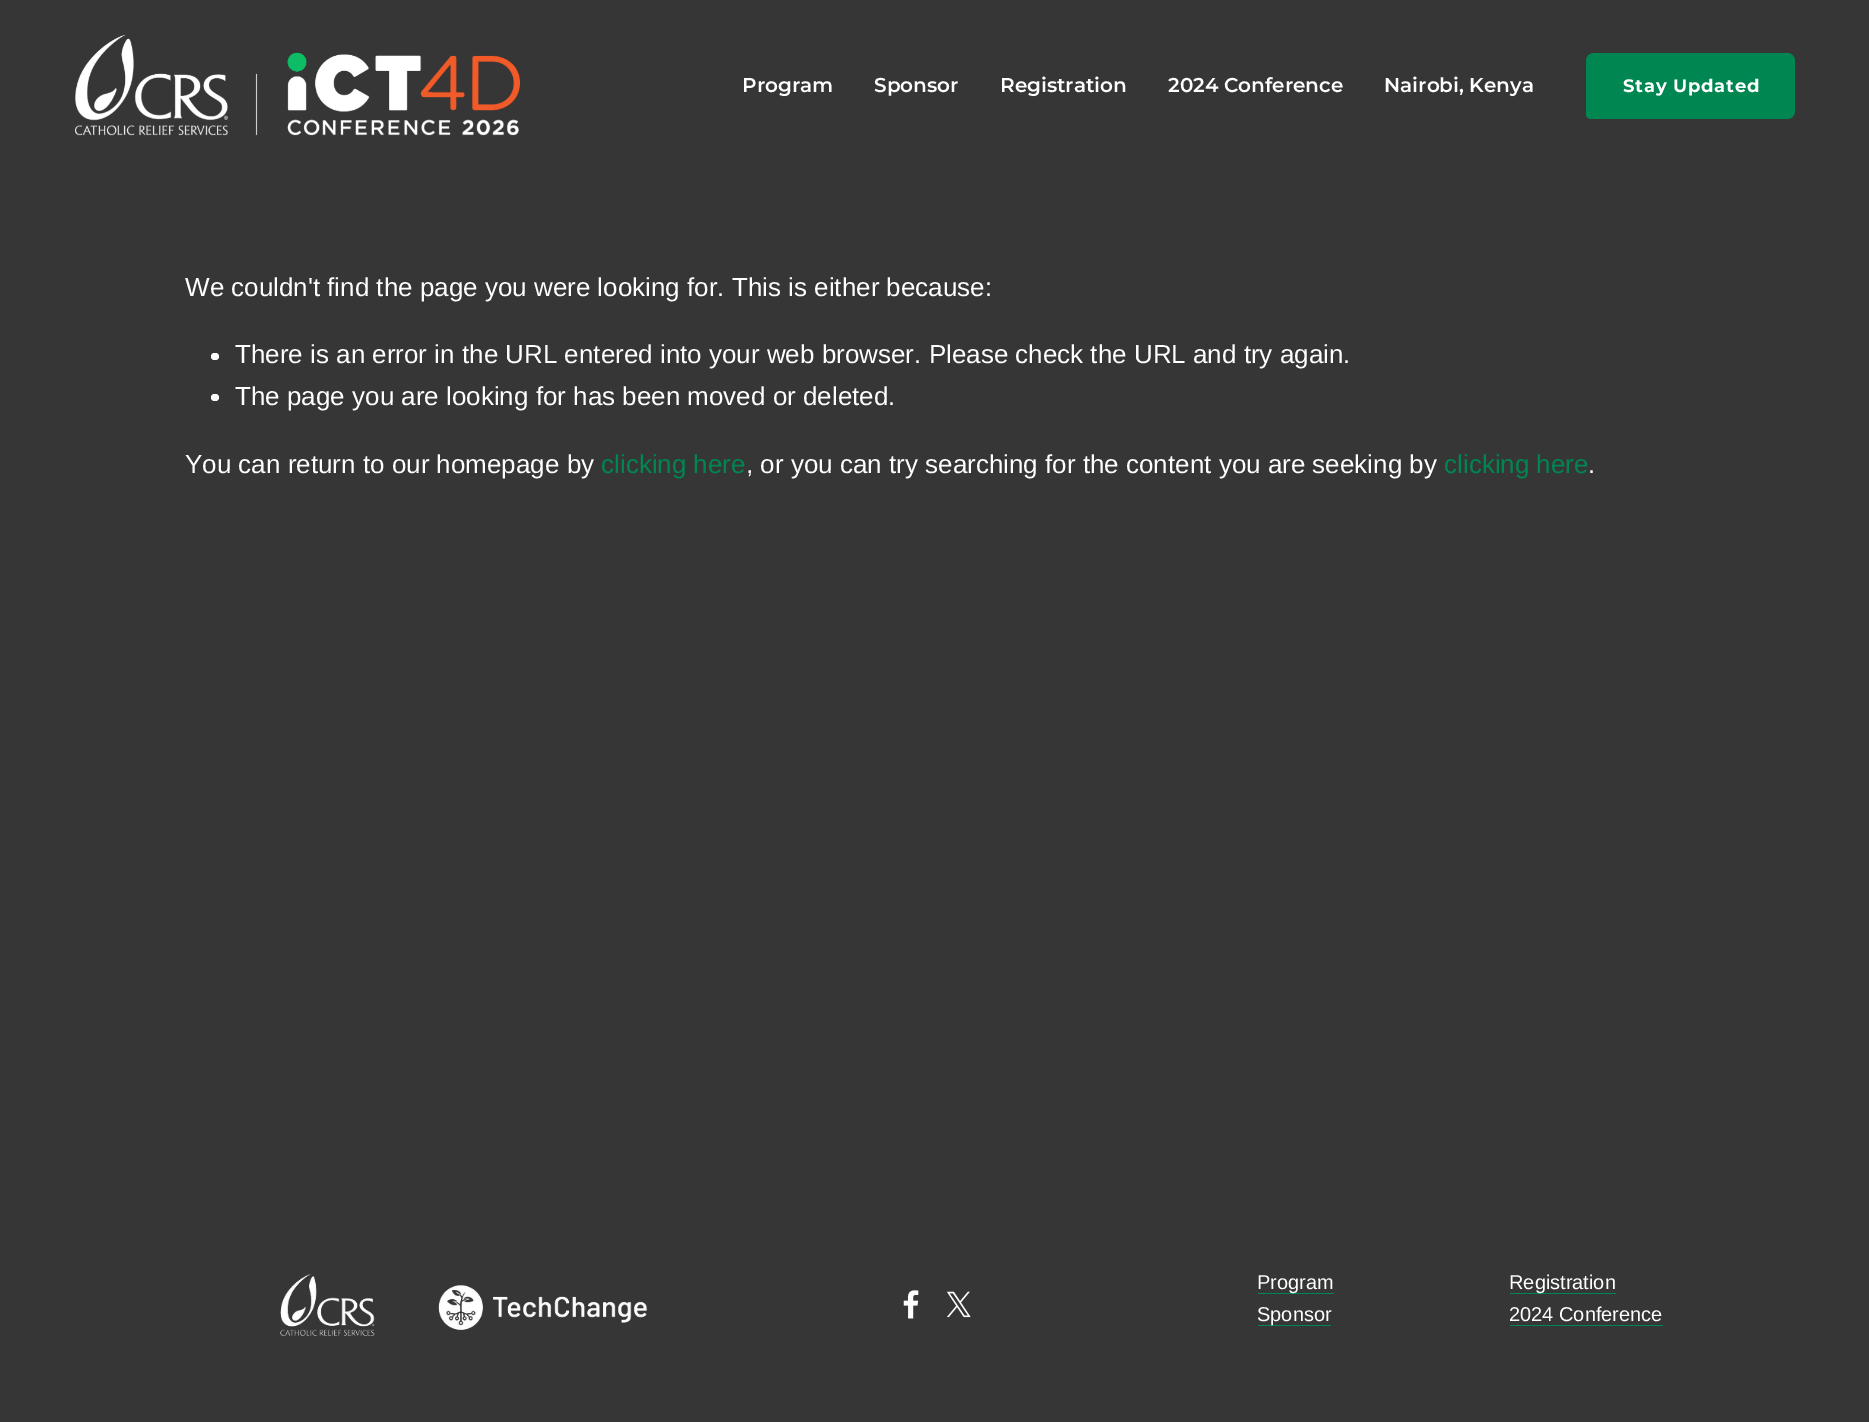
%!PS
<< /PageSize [1869 1422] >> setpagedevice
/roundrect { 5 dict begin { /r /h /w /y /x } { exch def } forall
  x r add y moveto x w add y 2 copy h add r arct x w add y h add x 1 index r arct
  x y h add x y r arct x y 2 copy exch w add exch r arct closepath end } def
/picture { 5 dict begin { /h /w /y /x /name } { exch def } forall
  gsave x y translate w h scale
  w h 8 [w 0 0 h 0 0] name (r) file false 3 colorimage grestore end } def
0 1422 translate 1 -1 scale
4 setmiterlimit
0.212 setgray
0 0 1869 1422 rectfill
(img1.rgb) 75 35 445 101 picture
/Montserrat-SemiBold [20 0 0 -20 0 0] selectfont
1 setgray
742 92 moveto (Program) show
874 92 moveto (Sponsor) show
1000 92 moveto (Registration) show
1168 92 moveto (2024 Conference) show
1384 92 moveto (Nairobi, Kenya) show
0 0.529 0.318 setrgbcolor
newpath 1594 53 moveto 1787 53 lineto 1791.5 53 1795 56.5 1795 61 curveto 1795 111 lineto 1795 115.5 1791.5 119 1787 119 curveto 1591 119 lineto 1588 119 1586 117 1586 114 curveto 1586 61 lineto 1586 56.5 1589.5 53 1594 53 curveto closepath fill
/Montserrat-Bold [18 0 0 -18 0 0] selectfont
1 setgray
1623 92 moveto 0.75 0 (Stay Updated) ashow
/LiberationSans-Regular [26 0 0 -26 0 0] selectfont
185 296 moveto (We couldn't find the page you were looking for. This is either because:) show
211 353 8 7 3.5 roundrect fill
235 363 moveto (There is an error in the URL entered into your web browser. Please check the URL and try again.) show
211 394 8 7 3.5 roundrect fill
235 405 moveto (The page you are looking for has been moved or deleted.) show
185 473 moveto (You can return to our homepage by) show
0 0.529 0.318 setrgbcolor
601 473 moveto (clicking here) show
1 setgray
746 473 moveto (, or you can try searching for the content you are seeking by) show
0 0.529 0.318 setrgbcolor
1444 473 moveto (clicking here) show
1 setgray
1588 473 moveto (.) show
(img2.rgb) 280 1274 368 62 picture
(img3.rgb) 903 1290 16 29 picture
(img4.rgb) 946 1291 25 27 picture
0 0.529 0.318 setrgbcolor
1258 1293 76 1 rectfill
/LiberationSans-Regular [20 0 0 -20 0 0] selectfont
1 setgray
1257 1289 moveto (Program) show
0 0.529 0.318 setrgbcolor
1258 1325 73 1 rectfill
1 setgray
1257 1321 moveto (Sponsor) show
0 0.529 0.318 setrgbcolor
1510 1293 106 1 rectfill
1 setgray
1509 1289 moveto (Registration) show
1509 1321 moveto (2024 Conference) show
0 0.529 0.318 setrgbcolor
1510 1325 153 1 rectfill
showpage
